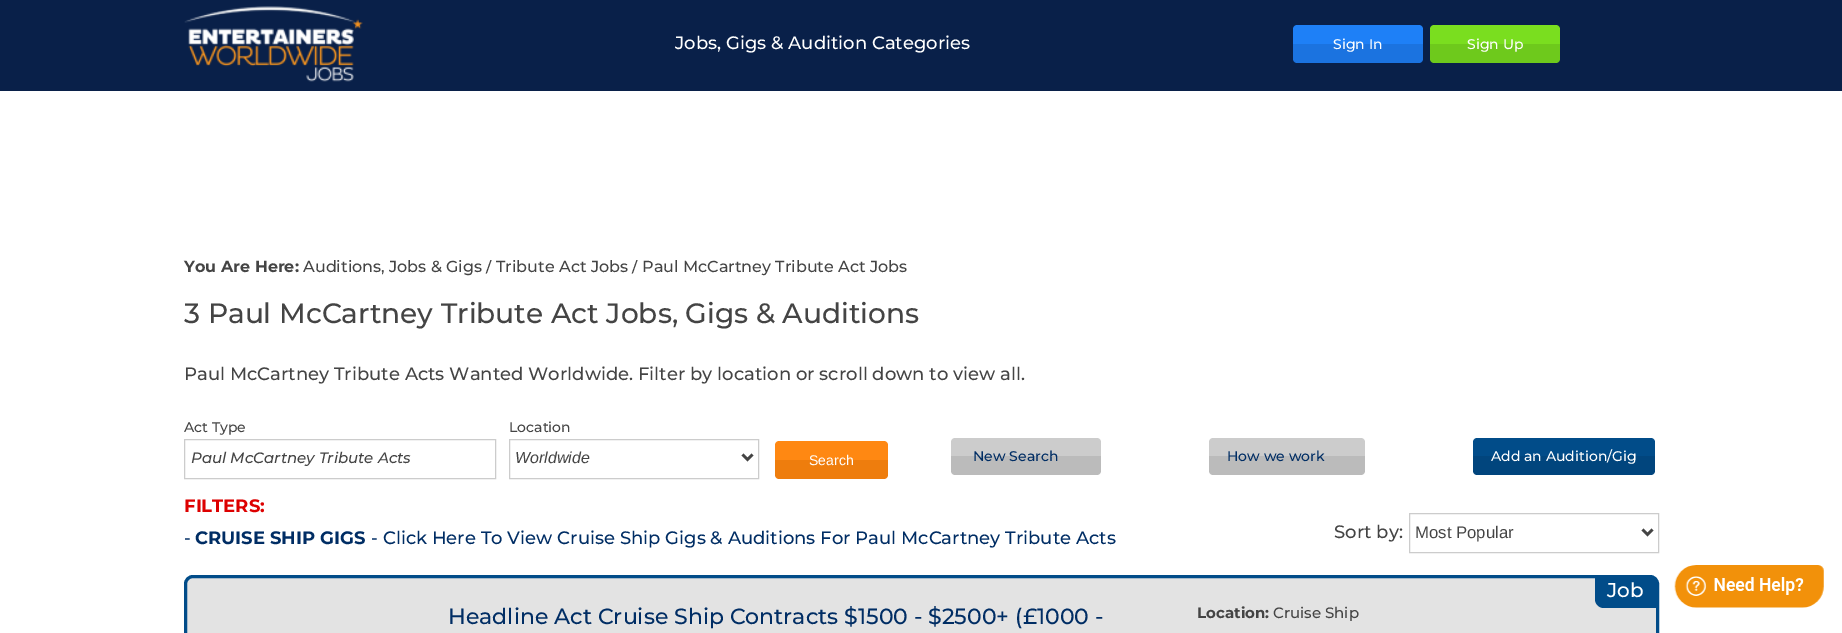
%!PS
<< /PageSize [1842 633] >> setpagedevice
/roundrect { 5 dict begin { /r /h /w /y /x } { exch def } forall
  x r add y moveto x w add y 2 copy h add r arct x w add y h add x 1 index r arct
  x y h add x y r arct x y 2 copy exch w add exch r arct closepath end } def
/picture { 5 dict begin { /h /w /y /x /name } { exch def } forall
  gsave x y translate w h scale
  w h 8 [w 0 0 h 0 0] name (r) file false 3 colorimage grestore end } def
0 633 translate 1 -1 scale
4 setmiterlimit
1 setgray
0 0 1842 633 rectfill
0.035 0.125 0.286 setrgbcolor
0 0 1842 91 rectfill
(img1.rgb) 184 6 179 76 picture
/Montserrat-Medium [18 0 0 -18 0 0] selectfont
1 setgray
675 49 moveto (Jobs, Gigs & Audition Categories) show
0.118 0.502 0.969 setrgbcolor
newpath 1297 25 moveto 1419 25 lineto 1421 25 1423 27 1423 29 curveto 1423 44 lineto 1293 44 lineto 1293 29 lineto 1293 27 1295 25 1297 25 curveto closepath fill
0.106 0.451 0.878 setrgbcolor
newpath 1293 44 moveto 1423 44 lineto 1423 59 lineto 1423 61 1421 63 1419 63 curveto 1297 63 lineto 1295 63 1293 61 1293 59 curveto closepath fill
/Montserrat-Medium [14 0 0 -14 0 0] selectfont
1 setgray
1333 49 moveto (Sign In) show
0.478 0.871 0.122 setrgbcolor
newpath 1434 25 moveto 1556 25 lineto 1558 25 1560 27 1560 29 curveto 1560 44 lineto 1430 44 lineto 1430 29 lineto 1430 27 1432 25 1434 25 curveto closepath fill
0.431 0.788 0.11 setrgbcolor
newpath 1430 44 moveto 1560 44 lineto 1560 59 lineto 1560 61 1558 63 1556 63 curveto 1434 63 lineto 1432 63 1430 61 1430 59 curveto closepath fill
1 setgray
1467 49 moveto (Sign Up) show
/Montserrat-Bold [16 0 0 -16 0 0] selectfont
0.267 setgray
184 272 moveto (You Are Here:) show
/Montserrat-Medium [16 0 0 -16 0 0] selectfont
303 272 moveto (Auditions, Jobs & Gigs) show
gsave
171 260 1500 156 rectclip
486 272 moveto (/) show
grestore
496 272 moveto (Tribute Act Jobs) show
gsave
171 260 1500 156 rectclip
632 272 moveto (/) show
grestore
642 272 moveto (Paul McCartney Tribute Act Jobs) show
/Montserrat-Medium [28 0 0 -28 0 0] selectfont
184 323 moveto (3 Paul McCartney Tribute Act Jobs, Gigs & Auditions) show
/Montserrat-Medium [18 0 0 -18 0 0] selectfont
184 380 moveto (Paul McCartney Tribute Acts Wanted Worldwide. Filter by location or scroll down to view all.) show
/Montserrat-Medium [14 0 0 -14 0 0] selectfont
184 432 moveto (Act Type) show
0.8 setgray
184.5 439.5 311 39 rectstroke
/Montserrat-MediumItalic [15 0 0 -15 0 0] selectfont
0.267 setgray
191 463 moveto (Paul McCartney Tribute Acts) show
/Montserrat-Medium [14 0 0 -14 0 0] selectfont
509 432 moveto (Location) show
0.8 setgray
509.5 439.5 249 39 rectstroke
0.267 setgray
2.5 setlinewidth
newpath 742.5 454.5 moveto 747.5 459.5 lineto 752.5 454.5 lineto stroke
/LiberationSans-Italic [16 0 0 -16 0 0] selectfont
515 463 moveto (Worldwide) show
1 0.533 0.071 setrgbcolor
newpath 779 441 moveto 884 441 lineto 886 441 888 443 888 445 curveto 888 460 lineto 775 460 lineto 775 445 lineto 775 443 777 441 779 441 curveto closepath fill
0.933 0.49 0.051 setrgbcolor
newpath 775 460 moveto 888 460 lineto 888 475 lineto 888 477 886 479 884 479 curveto 779 479 lineto 777 479 775 477 775 475 curveto closepath fill
/LiberationSans-Regular [14 0 0 -14 0 0] selectfont
1 setgray
809 465 moveto (Search) show
0.8 setgray
newpath 955 438 moveto 1097 438 lineto 1099 438 1101 440 1101 442 curveto 1101 456 lineto 951 456 lineto 951 442 lineto 951 440 953 438 955 438 curveto closepath fill
0.733 setgray
newpath 951 456 moveto 1101 456 lineto 1101 471 lineto 1101 473 1099 475 1097 475 curveto 955 475 lineto 953 475 951 473 951 471 curveto closepath fill
/Montserrat-Medium [14 0 0 -14 0 0] selectfont
0 0.176 0.392 setrgbcolor
973 461 moveto (New Search) show
0.8 setgray
newpath 1213 438 moveto 1361 438 lineto 1363 438 1365 440 1365 442 curveto 1365 456 lineto 1209 456 lineto 1209 442 lineto 1209 440 1211 438 1213 438 curveto closepath fill
0.733 setgray
newpath 1209 456 moveto 1365 456 lineto 1365 471 lineto 1365 473 1363 475 1361 475 curveto 1213 475 lineto 1211 475 1209 473 1209 471 curveto closepath fill
0 0.176 0.392 setrgbcolor
1227 461 moveto (How we work) show
0.004 0.298 0.537 setrgbcolor
newpath 1477 438 moveto 1651 438 lineto 1653 438 1655 440 1655 442 curveto 1655 456 lineto 1473 456 lineto 1473 442 lineto 1473 440 1475 438 1477 438 curveto closepath fill
0.004 0.271 0.49 setrgbcolor
newpath 1473 456 moveto 1655 456 lineto 1655 471 lineto 1655 473 1653 475 1651 475 curveto 1477 475 lineto 1475 475 1473 473 1473 471 curveto closepath fill
1 setgray
1491 461 moveto (Add an Audition/Gig) show
/Montserrat-Bold [18 0 0 -18 0 0] selectfont
0.867 0 0 setrgbcolor
184 512 moveto (FILTERS:) show
/Montserrat-Medium [18 0 0 -18 0 0] selectfont
0 0.176 0.392 setrgbcolor
184 544 moveto (-) show
/Montserrat-Bold [18 0 0 -18 0 0] selectfont
195 544 moveto (CRUISE SHIP GIGS) show
/Montserrat-Medium [18 0 0 -18 0 0] selectfont
371 544 moveto (- Click Here To View Cruise Ship Gigs & Auditions For Paul McCartney Tribute Acts) show
0.267 setgray
1334 538 moveto (Sort by:) show
0.8 setgray
1 setlinewidth
1409.5 513.5 249 39 rectstroke
0.267 setgray
2.5 setlinewidth
newpath 1642.5 529.5 moveto 1647.5 534.5 lineto 1652.5 529.5 lineto stroke
/LiberationSans-Regular [16.75 0 0 -16.75 0 0] selectfont
1415 538 moveto (Most Popular) show
0.89 setgray
185.5 576.5 1472 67 7.5 roundrect gsave fill grestore
0.004 0.298 0.537 setrgbcolor
3 setlinewidth
stroke
newpath 1595 578 moveto 1656 578 lineto 1656 608 lineto 1604 608 lineto 1599 608 1595 604 1595 599 curveto closepath fill
/Montserrat-Medium [20 0 0 -20 0 0] selectfont
1 setgray
1607 597 moveto (Job) show
/Montserrat-Medium [22 0 0 -22 0 0] selectfont
0 0.176 0.392 setrgbcolor
448 624 moveto (Headline Act Cruise Ship Contracts $1500 - $2500+ \(£1000 -) show
/Montserrat-Bold [15 0 0 -15 0 0] selectfont
0.267 setgray
1197 618 moveto (Location:) show
/Montserrat-Medium [15 0 0 -15 0 0] selectfont
1273 618 moveto (Cruise Ship) show
(img2.rgb) 1674 565 150 43 picture
showpage
